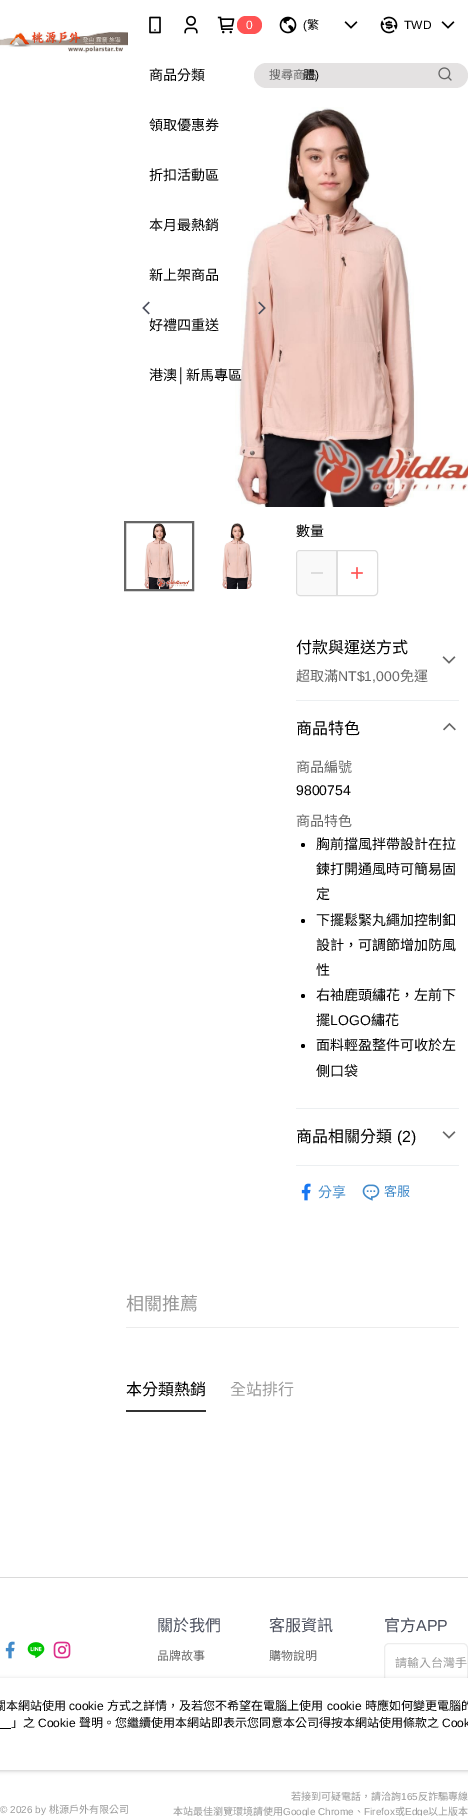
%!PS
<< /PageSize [468 1816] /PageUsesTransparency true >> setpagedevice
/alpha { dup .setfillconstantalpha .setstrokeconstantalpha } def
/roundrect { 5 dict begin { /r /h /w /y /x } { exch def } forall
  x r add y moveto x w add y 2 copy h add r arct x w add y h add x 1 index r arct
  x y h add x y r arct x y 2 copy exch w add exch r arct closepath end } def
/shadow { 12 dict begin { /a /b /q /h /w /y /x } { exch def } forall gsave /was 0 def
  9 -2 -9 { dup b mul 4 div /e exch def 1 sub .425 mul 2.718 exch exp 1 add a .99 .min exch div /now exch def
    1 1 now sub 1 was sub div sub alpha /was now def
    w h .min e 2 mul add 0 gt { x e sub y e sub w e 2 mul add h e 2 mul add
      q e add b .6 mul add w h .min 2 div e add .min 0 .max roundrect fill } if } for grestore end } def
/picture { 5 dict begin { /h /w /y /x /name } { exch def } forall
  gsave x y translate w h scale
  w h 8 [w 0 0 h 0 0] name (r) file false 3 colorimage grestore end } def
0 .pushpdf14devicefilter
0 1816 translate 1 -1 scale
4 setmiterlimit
1 setgray
0 0 468 1816 rectfill
(img1.rgb) 0 30 128 23 picture
(img2.rgb) 149 16 12 18 picture
(img3.rgb) 184 15 14 19 picture
(img4.rgb) 217 16 18 18 picture
1 0.325 0.325 setrgbcolor
237 16 25 18 9 roundrect fill
/LiberationSans-Regular [12 0 0 -12 0 0] selectfont
1 setgray
246 29 moveto (0) show
(img5.rgb) 279 16 18 18 picture
0 setgray
303 29 moveto (\() show
/NotoSansCJKTC-Regular [12 0 0 -12 0 0] selectfont
307 29 moveto (繁) show
0.894 0.886 0.886 setrgbcolor
254 63 214 25 12.5 roundrect fill
0.4 setgray
269 79 moveto (搜尋商品) show
0 setgray
303 79 moveto (體) show
/LiberationSans-Regular [12 0 0 -12 0 0] selectfont
315 79 moveto (\)) show
(img6.rgb) 344 21 14 8 picture
(img7.rgb) 380 16 18 18 picture
404 29 moveto (TWD) show
(img6.rgb) 441 21 14 8 picture
/NotoSansCJKTC-Regular [14 0 0 -14 0 0] selectfont
149 80 moveto (商品分類) show
149 130 moveto (領取優惠券) show
149 180 moveto (折扣活動區) show
149 230 moveto (本月最熱銷) show
149 280 moveto (新上架商品) show
149 330 moveto (好禮四重送) show
149 380 moveto (港澳) show
/LiberationSans-Regular [14 0 0 -14 0 0] selectfont
177 380 moveto (│) show
(img10.rgb) 235 107 233 400 picture
/NotoSansCJKTC-Regular [14 0 0 -14 0 0] selectfont
186 380 moveto (新馬專區) show
(img8.rgb) 438 67 14 14 picture
(img9.rgb) 142 301 8 14 picture
(img11.rgb) 258 301 8 14 picture
(img12.rgb) 144 523 46 66 picture
0.4 setgray
2 setlinewidth
125 522 68 68 rectstroke
(img13.rgb) 222 523 30 66 picture
0 setgray
296 536 moveto (數量) show
0.867 setgray
1 setlinewidth
296.5 550.5 81 45 3.5 roundrect stroke
0.4 alpha
0.945 setgray
297 551 39 44 rectfill
1 alpha
0.867 setgray
311 572 12 2 rectfill
336 551 2 44 rectfill
(img14.rgb) 351 567 12 12 picture
0.925 0.937 0.945 setrgbcolor
296 700 163 1 rectfill
/NotoSansCJKTC-Regular [16 0 0 -16 0 0] selectfont
0 setgray
296 653 moveto (付款與運送方式) show
/NotoSansCJKTC-Regular [14 0 0 -14 0 0] selectfont
0.4 setgray
296 681 moveto (超取滿) show
/LiberationSans-Regular [14 0 0 -14 0 0] selectfont
338 681 moveto (NT$1,000) show
/NotoSansCJKTC-Regular [14 0 0 -14 0 0] selectfont
400 681 moveto (免運) show
(img15.rgb) 442 656 14 8 picture
0.925 0.937 0.945 setrgbcolor
296 1108 163 1 rectfill
/NotoSansCJKTC-Regular [16 0 0 -16 0 0] selectfont
0 setgray
296 734 moveto (商品特色) show
(img16.rgb) 443 722 13 9 picture
/NotoSansCJKTC-Regular [14 0 0 -14 0 0] selectfont
0.4 setgray
296 772 moveto (商品編號) show
/LiberationSans-Regular [14 0 0 -14 0 0] selectfont
0 setgray
296 795 moveto (9800754) show
/NotoSansCJKTC-Regular [14 0 0 -14 0 0] selectfont
0.4 setgray
296 826 moveto (商品特色) show
0 setgray
newpath 303 845 2 0 360 arc closepath fill
316 849 moveto (胸前擋風拌帶設計在拉) show
316 874 moveto (鍊打開通風時可簡易固) show
316 899 moveto (定) show
newpath 303 921 2 0 360 arc closepath fill
316 925 moveto (下擺鬆緊丸繩加控制釦) show
316 950 moveto (設計，可調節增加防風) show
316 975 moveto (性) show
newpath 303 996 2 0 360 arc closepath fill
316 1000 moveto (右袖鹿頭繡花，左前下) show
316 1025 moveto (擺) show
/LiberationSans-Regular [14 0 0 -14 0 0] selectfont
330 1025 moveto (LOGO) show
/NotoSansCJKTC-Regular [14 0 0 -14 0 0] selectfont
371 1025 moveto (繡花) show
newpath 303 1046 2 0 360 arc closepath fill
316 1050 moveto (面料輕盈整件可收於左) show
316 1076 moveto (側口袋) show
0.925 0.937 0.945 setrgbcolor
296 1165 163 1 rectfill
/NotoSansCJKTC-Regular [16 0 0 -16 0 0] selectfont
0 setgray
296 1142 moveto (商品相關分類) show
/LiberationSans-Regular [16 0 0 -16 0 0] selectfont
397 1142 moveto (\(2\)) show
(img15.rgb) 442 1131 14 8 picture
(img17.rgb) 301 1183 10 18 picture
/NotoSansCJKTC-Regular [14 0 0 -14 0 0] selectfont
0.259 0.545 0.792 setrgbcolor
318 1197 moveto (分享) show
(img18.rgb) 362 1184 18 17 picture
/NotoSansCJKTC-Regular [13 0 0 -13 0 0] selectfont
384 1196 moveto (客服) show
0.925 setgray
126 1327 333 1 rectfill
/NotoSansCJKTC-Regular [18 0 0 -18 0 0] selectfont
0.6 setgray
126 1310 moveto (相關推薦) show
0.2 setgray
126 1410 80 2 rectfill
/NotoSansCJKTC-Regular [16 0 0 -16 0 0] selectfont
0 setgray
126 1395 moveto (本分類熱銷) show
0.6 setgray
230 1395 moveto (全站排行) show
0.855 setgray
0 1577 468 1 rectfill
(img19.rgb) 5 1641 10 18 picture
(img20.rgb) 27 1642 18 16 picture
(img21.rgb) 53 1641 18 18 picture
0.29 0.306 0.361 setrgbcolor
157 1631 moveto (關於我們) show
/NotoSansCJKTC-Regular [12 0 0 -12 0 0] selectfont
0.4 setgray
157 1660 moveto (品牌故事) show
/NotoSansCJKTC-Regular [16 0 0 -16 0 0] selectfont
0.29 0.306 0.361 setrgbcolor
269 1631 moveto (客服資訊) show
/NotoSansCJKTC-Regular [12 0 0 -12 0 0] selectfont
0.4 setgray
269 1660 moveto (購物說明) show
/NotoSansCJKTC-Regular [16 0 0 -16 0 0] selectfont
0.29 0.306 0.361 setrgbcolor
384 1631 moveto (官方) show
/LiberationSans-Regular [16 0 0 -16 0 0] selectfont
416 1631 moveto (APP) show
0.929 setgray
384.5 1643.5 83 39 4.5 roundrect stroke
/NotoSansCJKTC-Regular [12 0 0 -12 0 0] selectfont
0.6 setgray
395 1667 moveto (請輸入台灣手) show
/NotoSansCJKTC-Regular [10 0 0 -10 0 0] selectfont
291 1800 moveto (若接到可疑電話，請洽詢) show
/LiberationSans-Regular [10 0 0 -10 0 0] selectfont
401 1800 moveto (165) show
/NotoSansCJKTC-Regular [10 0 0 -10 0 0] selectfont
418 1800 moveto (反詐騙專線) show
/LiberationSans-Regular [10 0 0 -10 0 0] selectfont
0 1813 moveto (© 2026 by) show
/NotoSansCJKTC-Regular [10 0 0 -10 0 0] selectfont
49 1813 moveto (桃源戶外有限公司) show
173 1815 moveto (本站最佳瀏覽環境請使用) show
/LiberationSans-Regular [10 0 0 -10 0 0] selectfont
283 1815 moveto (Google Chrome) show
/NotoSansCJKTC-Regular [10 0 0 -10 0 0] selectfont
354 1815 moveto (、) show
/LiberationSans-Regular [10 0 0 -10 0 0] selectfont
364 1815 moveto (Firefox) show
/NotoSansCJKTC-Regular [10 0 0 -10 0 0] selectfont
395 1815 moveto (或) show
/LiberationSans-Regular [10 0 0 -10 0 0] selectfont
405 1815 moveto (Edge) show
/NotoSansCJKTC-Regular [10 0 0 -10 0 0] selectfont
428 1815 moveto (以上版本) show
0.592 setgray
-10 1679 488 92 4 2 0.5 shadow
1 setgray
0 1678 468 92 rectfill
/NotoSansCJKTC-Regular [12 0 0 -12 0 0] selectfont
0 setgray
-6 1710 moveto (關本網站使用) show
/LiberationSans-Regular [12 0 0 -12 0 0] selectfont
69 1710 moveto (cookie) show
/NotoSansCJKTC-Regular [12 0 0 -12 0 0] selectfont
107 1710 moveto (方式之詳情，及若您不希望在電腦上使用) show
/LiberationSans-Regular [12 0 0 -12 0 0] selectfont
327 1710 moveto (cookie) show
/NotoSansCJKTC-Regular [12 0 0 -12 0 0] selectfont
365 1710 moveto (時應如何變更電腦的) show
11 1727 moveto (」之) show
/LiberationSans-Regular [12 0 0 -12 0 0] selectfont
38 1727 moveto (Cookie) show
/NotoSansCJKTC-Regular [12 0 0 -12 0 0] selectfont
79 1727 moveto (聲明。您繼續使用本網站即表示您同意本公司得按本網站使用條款之) show
/LiberationSans-Regular [12 0 0 -12 0 0] selectfont
442 1727 moveto (Cook) show
0 1728 11 1 rectfill
.poppdf14devicefilter showpage
